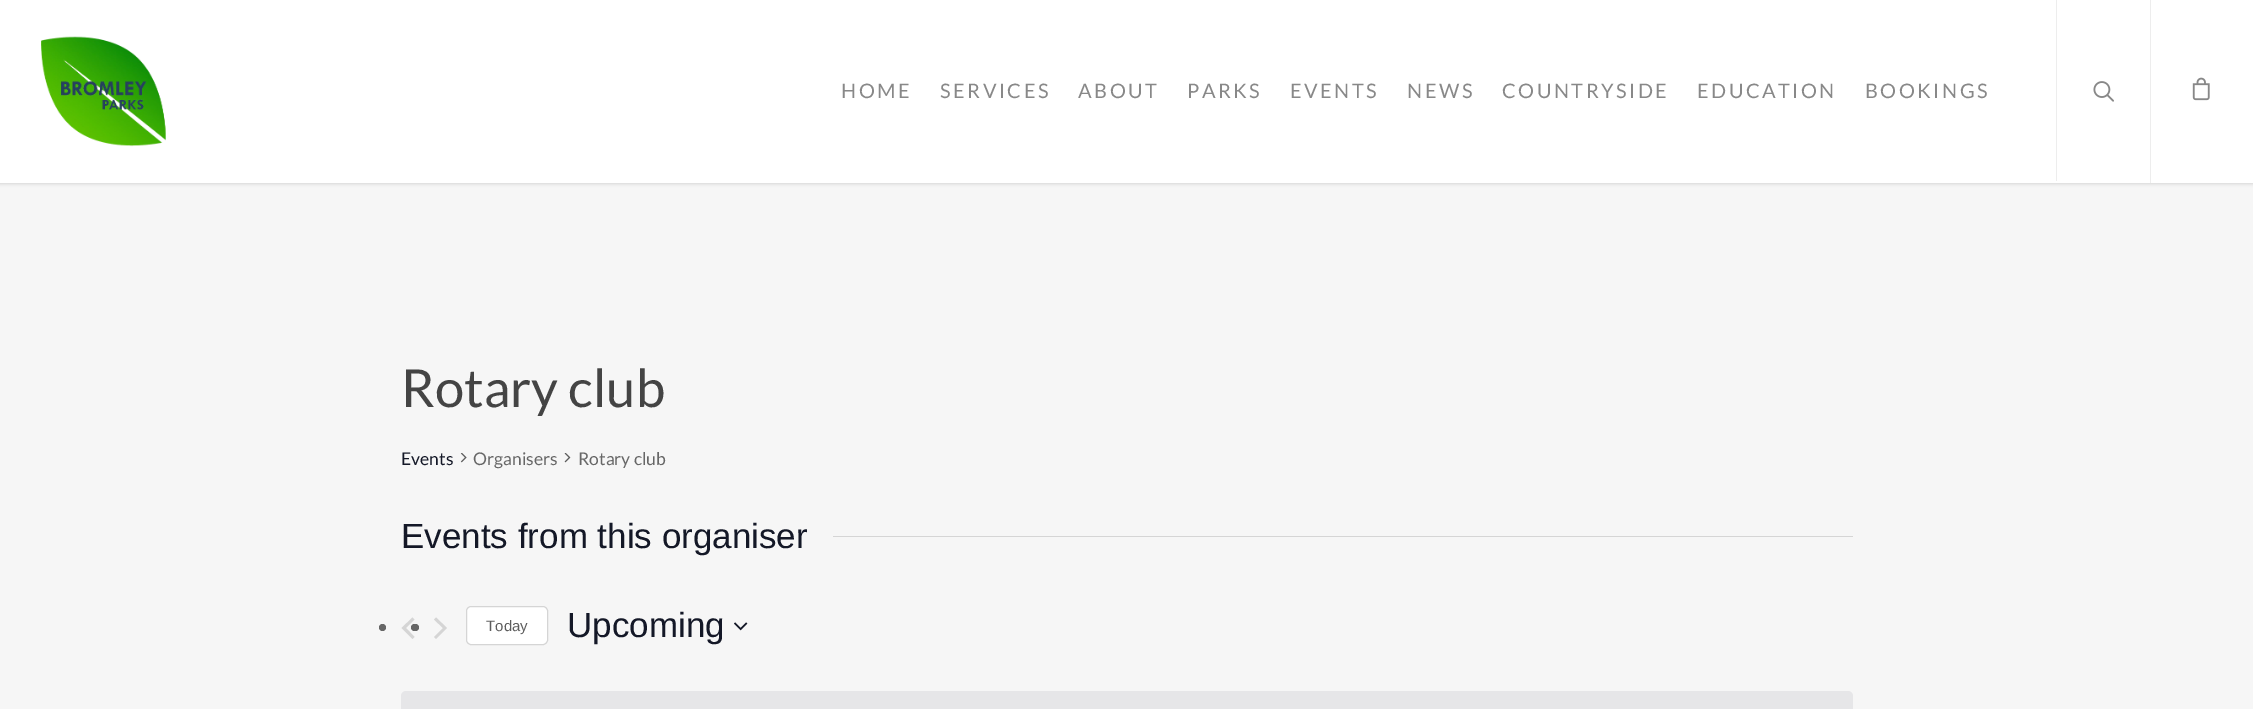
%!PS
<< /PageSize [2253 709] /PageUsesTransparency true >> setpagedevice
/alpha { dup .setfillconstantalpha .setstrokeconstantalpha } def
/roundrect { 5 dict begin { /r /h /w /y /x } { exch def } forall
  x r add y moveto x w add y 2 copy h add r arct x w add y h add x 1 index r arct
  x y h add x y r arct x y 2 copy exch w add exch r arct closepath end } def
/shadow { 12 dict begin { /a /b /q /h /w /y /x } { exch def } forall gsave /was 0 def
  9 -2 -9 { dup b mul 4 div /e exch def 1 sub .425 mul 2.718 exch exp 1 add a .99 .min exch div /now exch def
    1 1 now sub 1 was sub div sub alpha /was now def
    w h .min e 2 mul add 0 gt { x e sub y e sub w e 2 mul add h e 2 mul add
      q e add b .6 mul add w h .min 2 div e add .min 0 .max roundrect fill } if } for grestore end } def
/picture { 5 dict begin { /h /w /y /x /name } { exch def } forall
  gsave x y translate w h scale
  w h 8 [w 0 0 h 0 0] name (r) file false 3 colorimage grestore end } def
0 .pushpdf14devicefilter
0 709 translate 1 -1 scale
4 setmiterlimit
1 setgray
0 0 2253 709 rectfill
0.965 setgray
0 183 2253 526 rectfill
gsave
newpath 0 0 moveto 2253 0 lineto 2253 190 lineto 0 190 lineto closepath 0 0 moveto 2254 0 lineto 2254 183 lineto 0 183 lineto closepath eoclip newpath
0 setgray
0 0 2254 183 0 2 0.22 shadow
grestore
0.95 alpha
1 setgray
0 182 2253 1 rectfill
1 alpha
(img1.rgb) 41 36 125 111 picture
/Lato-Regular [20 0 0 -20 0 0] selectfont
0.533 setgray
841 98 moveto 2.5 0 (HOME) ashow
940 98 moveto 2.5 0 (SERVICES) ashow
1078 98 moveto 2.5 0 (ABOUT) ashow
1187 98 moveto 2.5 0 (PARKS) ashow
1290 98 moveto 2.5 0 (EVENTS) ashow
1407 98 moveto 2.5 0 (NEWS) ashow
1502 98 moveto 2.5 0 (COUNTRYSIDE) ashow
1697 98 moveto 2.5 0 (EDUCATION) ashow
1865 98 moveto 2.5 0 (BOOKINGS) ashow
0.929 setgray
2056 0 1 181 rectfill
(img2.rgb) 2093 81 21 21 picture
2150 0 1 183 rectfill
(img3.rgb) 2192 77 18 24 picture
/Lato-Regular [52.5 0 0 -52.5 0 0] selectfont
0.267 setgray
401 407 moveto (Rotary club) show
/Lato-Regular [17.5 0 0 -17.5 0 0] selectfont
0.078 0.094 0.153 setrgbcolor
401 465 moveto (Events) show
(img4.rgb) 460 453 7 10 picture
0.404 setgray
473 465 moveto (Organisers) show
(img5.rgb) 564 453 7 10 picture
578 465 moveto (Rotary club) show
/LiberationSans-Regular [35 0 0 -35 0 0] selectfont
0.078 0.094 0.153 setrgbcolor
401 548 moveto (Events from this organiser) show
0.835 setgray
833 536 1020 1 rectfill
0.404 setgray
newpath 382.5 627.5 3.5 0 360 arc closepath fill
411 624 8 7 3.5 roundrect fill
0.835 setgray
newpath 414.5 637 moveto 412.5 639 lineto 401.5 628 lineto 412.5 617.5 lineto 414.5 619.5 lineto 406 628 lineto closepath 434 619.5 moveto 436 617.5 lineto 447 628 lineto 436 639 lineto 434 637 lineto 443 628 lineto closepath fill
1 setgray
466.5 606.5 81 38 4.5 roundrect gsave fill grestore
0.835 setgray
stroke
/LiberationSans-Regular [15 0 0 -15 0 0] selectfont
0.365 setgray
486 631 moveto (Today) show
/LiberationSans-Regular [35 0 0 -35 0 0] selectfont
0.078 0.094 0.153 setrgbcolor
567 637 moveto (Upcoming) show
(img6.rgb) 734 622 14 9 picture
0.902 0.902 0.91 setrgbcolor
401 691 1452 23 5 roundrect fill
.poppdf14devicefilter showpage
